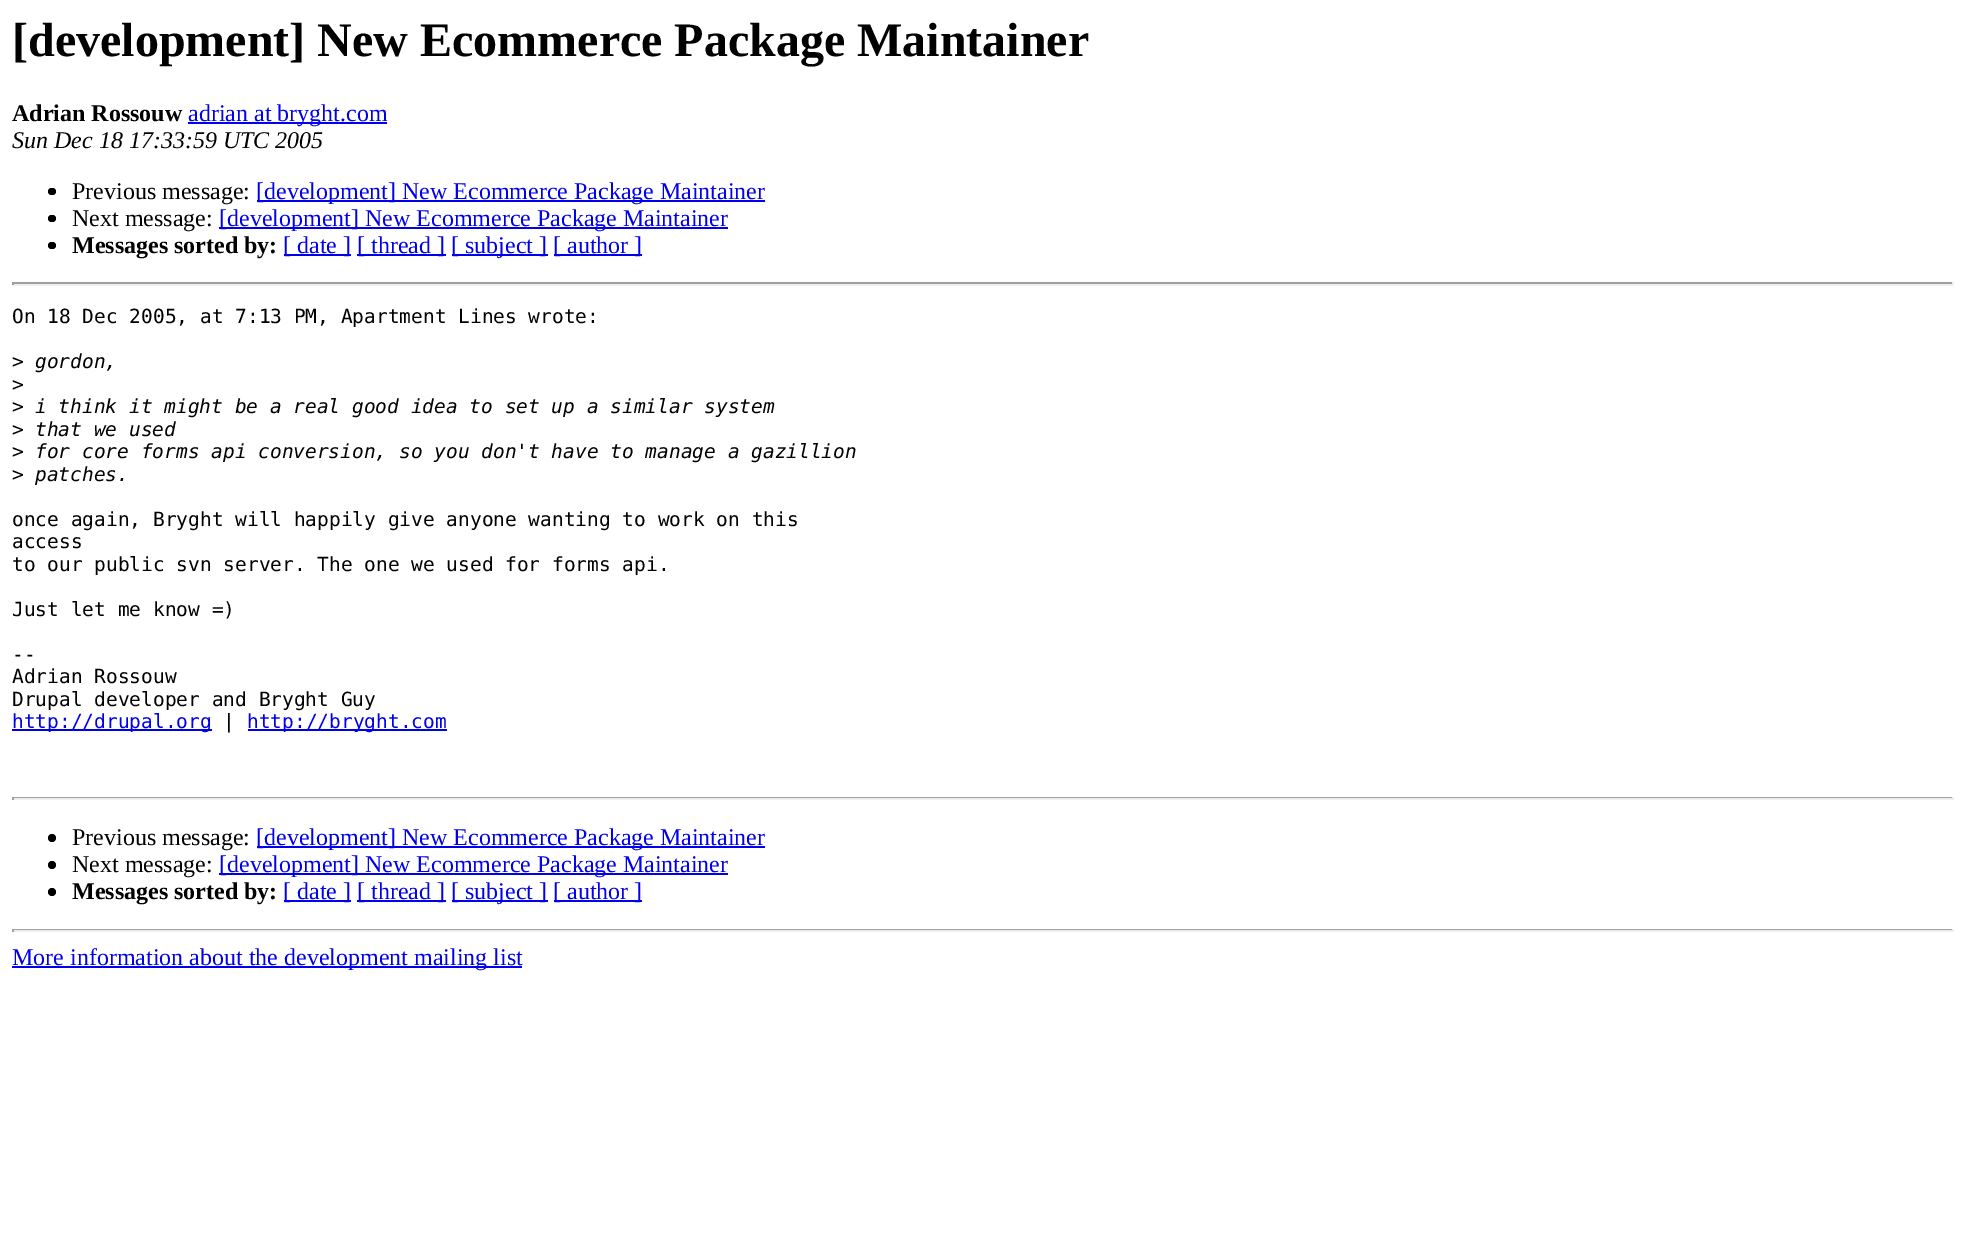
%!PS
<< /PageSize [1965 1257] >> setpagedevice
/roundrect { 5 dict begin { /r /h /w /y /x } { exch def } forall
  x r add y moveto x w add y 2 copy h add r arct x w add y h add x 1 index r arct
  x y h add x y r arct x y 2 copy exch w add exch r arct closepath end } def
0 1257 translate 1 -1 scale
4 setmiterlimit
1 setgray
0 0 1965 1257 rectfill
/LiberationSerif-Bold [48 0 0 -48 0 0] selectfont
0 setgray
12 56 moveto ([development] New Ecommerce Package Maintainer) show
/LiberationSerif-Bold [24 0 0 -24 0 0] selectfont
12 121 moveto (Adrian Rossouw) show
0 0 0.933 setrgbcolor
188 122 199 2 rectfill
/LiberationSerif-Regular [24 0 0 -24 0 0] selectfont
188 121 moveto (adrian at bryght.com) show
/LiberationSerif-Italic [24 0 0 -24 0 0] selectfont
0 setgray
12 148 moveto (Sun Dec 18 17:33:59 UTC 2005) show
48 188 8 7 3.5 roundrect fill
/LiberationSerif-Regular [24 0 0 -24 0 0] selectfont
72 199 moveto (Previous message:) show
0 0 0.933 setrgbcolor
257 200 508 2 rectfill
256 199 moveto ([development] New Ecommerce Package Maintainer) show
0 setgray
48 215 8 7 3.5 roundrect fill
72 226 moveto (Next message:) show
0 0 0.933 setrgbcolor
219 227 509 2 rectfill
219 226 moveto ([development] New Ecommerce Package Maintainer) show
0 setgray
48 242 8 7 3.5 roundrect fill
/LiberationSerif-Bold [24 0 0 -24 0 0] selectfont
72 253 moveto (Messages sorted by:) show
0 0 0.933 setrgbcolor
284 254 67 2 rectfill
/LiberationSerif-Regular [24 0 0 -24 0 0] selectfont
283 253 moveto ([ date ]) show
357 254 89 2 rectfill
357 253 moveto ([ thread ]) show
452 254 96 2 rectfill
451 253 moveto ([ subject ]) show
554 254 88 2 rectfill
553 253 moveto ([ author ]) show
0.624 setgray
12 282 1941 2 rectfill
0.933 setgray
1952 282 2 3 rectfill
12 284 1941 2 rectfill
0.624 setgray
12 282 2 3 rectfill
/DejaVuSansMono-Regular [19.5 0 0 -19.5 0 0] selectfont
0 setgray
12 323 moveto (On 18 Dec 2005, at 7:13 PM, Apartment Lines wrote:) show
12 368 moveto (>) show
/DejaVuSansMono-Italic [19.5 0 0 -19.5 0 0] selectfont
35 368 moveto (gordon,) show
/DejaVuSansMono-Regular [19.5 0 0 -19.5 0 0] selectfont
12 391 moveto (>) show
12 413 moveto (>) show
/DejaVuSansMono-Italic [19.5 0 0 -19.5 0 0] selectfont
35 413 moveto (i think it might be a real good idea to set up a similar system) show
/DejaVuSansMono-Regular [19.5 0 0 -19.5 0 0] selectfont
12 436 moveto (>) show
/DejaVuSansMono-Italic [19.5 0 0 -19.5 0 0] selectfont
35 436 moveto (that we used) show
/DejaVuSansMono-Regular [19.5 0 0 -19.5 0 0] selectfont
12 458 moveto (>) show
/DejaVuSansMono-Italic [19.5 0 0 -19.5 0 0] selectfont
35 458 moveto (for core forms api conversion, so you don't have to manage a gazillion) show
/DejaVuSansMono-Regular [19.5 0 0 -19.5 0 0] selectfont
12 481 moveto (>) show
/DejaVuSansMono-Italic [19.5 0 0 -19.5 0 0] selectfont
35 481 moveto (patches.) show
/DejaVuSansMono-Regular [19.5 0 0 -19.5 0 0] selectfont
12 526 moveto (once again, Bryght will happily give anyone wanting to work on this) show
12 548 moveto (access) show
12 571 moveto (to our public svn server. The one we used for forms api.) show
12 616 moveto (Just let me know =\)) show
12 661 moveto (--) show
12 683 moveto (Adrian Rossouw) show
12 706 moveto (Drupal developer and Bryght Guy) show
0 0 0.933 setrgbcolor
12 729 200 2 rectfill
12 728 moveto (http://drupal.org) show
0 setgray
223 728 moveto (|) show
0 0 0.933 setrgbcolor
248 729 199 2 rectfill
247 728 moveto (http://bryght.com) show
0.624 setgray
12 797 1941 1 rectfill
0.933 setgray
1952 797 2 3 rectfill
12 798 1941 2 rectfill
0.624 setgray
12 797 2 3 rectfill
0 setgray
newpath 52 838 4 0 360 arc closepath fill
/LiberationSerif-Regular [24 0 0 -24 0 0] selectfont
72 845 moveto (Previous message:) show
0 0 0.933 setrgbcolor
257 846 508 2 rectfill
256 845 moveto ([development] New Ecommerce Package Maintainer) show
0 setgray
newpath 52 865 4 0 360 arc closepath fill
72 872 moveto (Next message:) show
0 0 0.933 setrgbcolor
219 873 509 2 rectfill
219 872 moveto ([development] New Ecommerce Package Maintainer) show
0 setgray
newpath 52 892 4 0 360 arc closepath fill
/LiberationSerif-Bold [24 0 0 -24 0 0] selectfont
72 899 moveto (Messages sorted by:) show
0 0 0.933 setrgbcolor
284 900 67 2 rectfill
/LiberationSerif-Regular [24 0 0 -24 0 0] selectfont
283 899 moveto ([ date ]) show
357 900 89 2 rectfill
357 899 moveto ([ thread ]) show
452 900 96 2 rectfill
451 899 moveto ([ subject ]) show
554 900 88 2 rectfill
553 899 moveto ([ author ]) show
0.624 setgray
12 929 1941 1 rectfill
0.933 setgray
1952 929 2 3 rectfill
12 930 1941 2 rectfill
0.624 setgray
12 929 2 3 rectfill
0 0 0.933 setrgbcolor
12 966 510 2 rectfill
12 965 moveto (More information about the development mailing list) show
showpage
